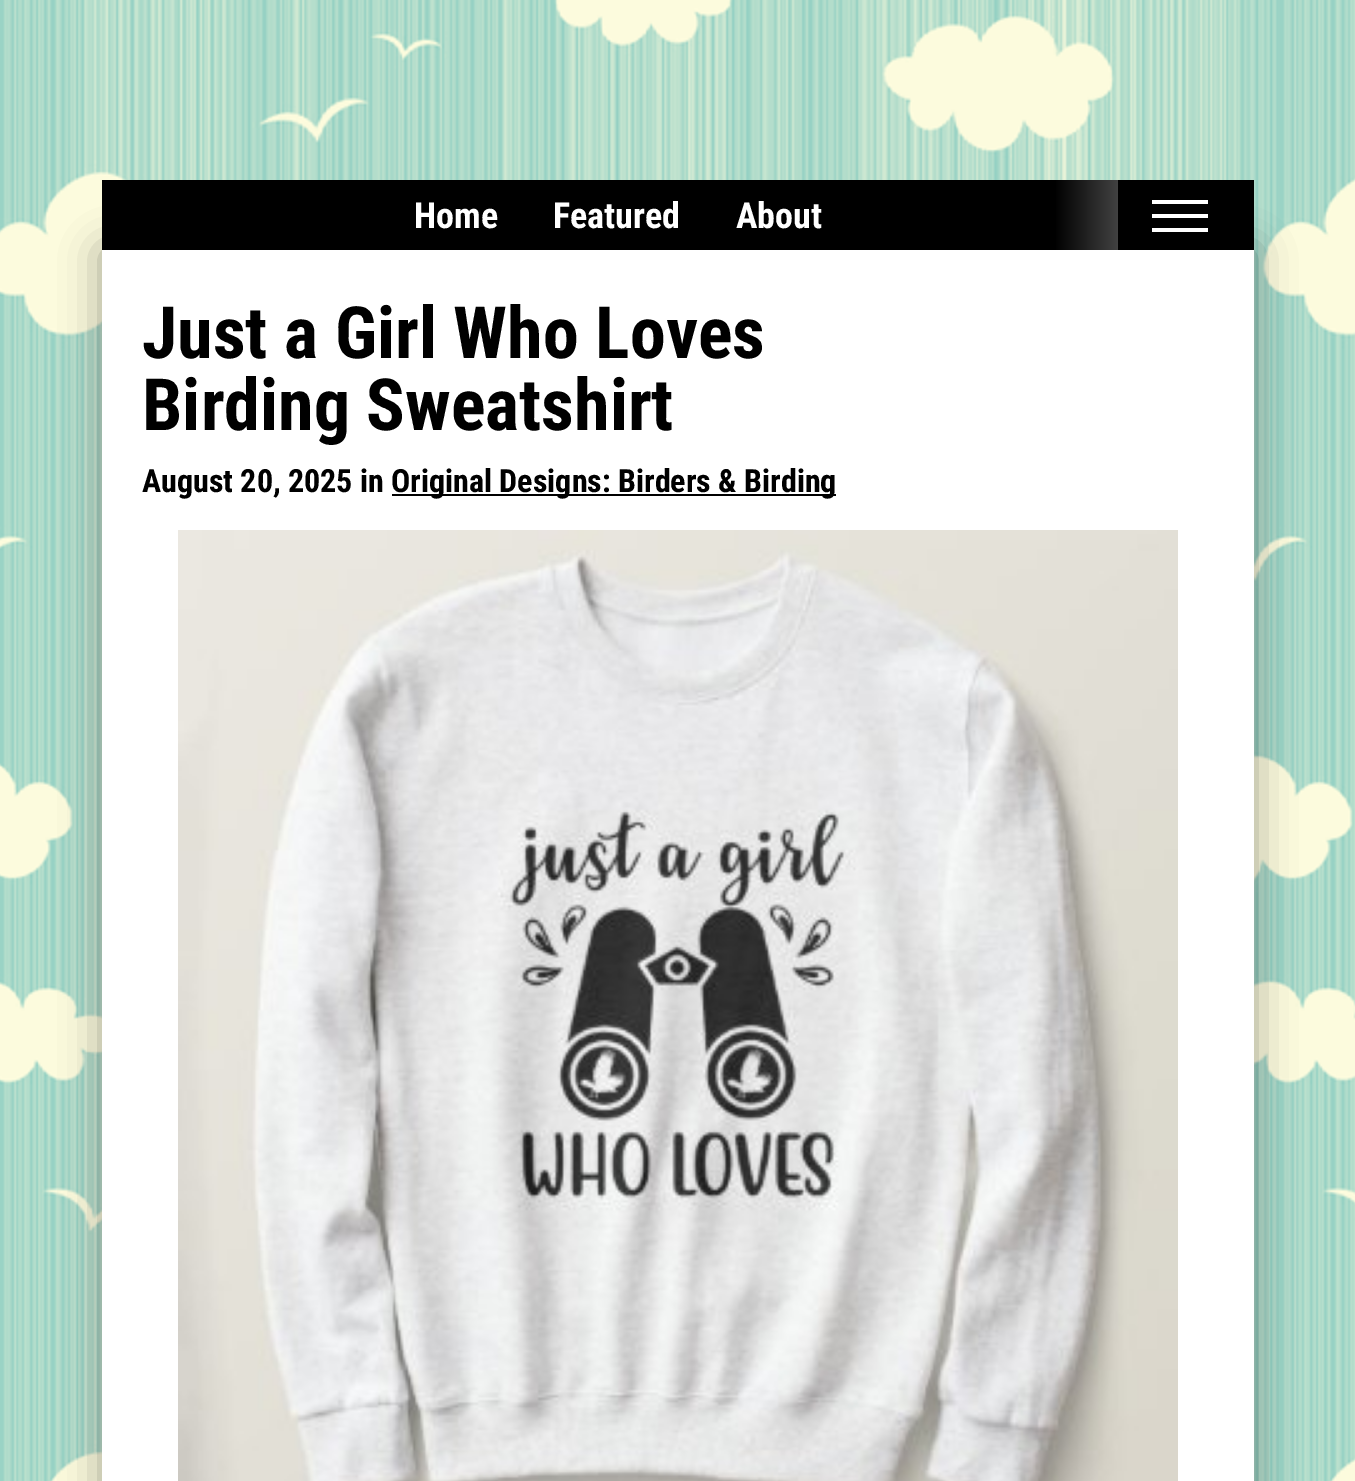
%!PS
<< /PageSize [1355 1481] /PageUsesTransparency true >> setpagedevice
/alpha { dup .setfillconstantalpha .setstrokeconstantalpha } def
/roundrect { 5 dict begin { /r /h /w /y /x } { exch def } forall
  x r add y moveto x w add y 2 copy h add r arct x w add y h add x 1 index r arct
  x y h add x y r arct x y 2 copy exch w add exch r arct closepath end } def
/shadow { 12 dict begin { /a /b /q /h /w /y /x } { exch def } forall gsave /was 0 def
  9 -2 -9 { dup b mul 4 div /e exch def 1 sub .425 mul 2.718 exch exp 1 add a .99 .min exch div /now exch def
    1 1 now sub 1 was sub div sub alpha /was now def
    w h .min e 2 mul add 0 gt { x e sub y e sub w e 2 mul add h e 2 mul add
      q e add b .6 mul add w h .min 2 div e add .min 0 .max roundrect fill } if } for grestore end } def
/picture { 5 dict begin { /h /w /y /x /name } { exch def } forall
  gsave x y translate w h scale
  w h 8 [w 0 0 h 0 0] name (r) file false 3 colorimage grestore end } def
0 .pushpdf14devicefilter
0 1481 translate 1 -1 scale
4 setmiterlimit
1 setgray
0 0 1355 1481 rectfill
(img1.rgb) 0 0 1355 1481 picture
0 setgray
102 250 1152 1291 0 20 0.35 shadow
102 180 1152 70 rectfill
/RobotoCondensed-Bold [36 0 0 -36 0 0] selectfont
1 setgray
414 228 moveto (Home) show
553 228 moveto (Featured) show
736 228 moveto (About) show
gsave newpath 1056 180 moveto 1118 180 lineto 1118 250 lineto 1056 250 lineto closepath clip newpath
<< /ShadingType 2 /ColorSpace /DeviceRGB /Coords [1054 215 1118 215] /Extend [true true] /Function << /FunctionType 2 /Domain [0 1] /C0 [0 0 0] /C1 [0.255 0.255 0.255] /N 1 >> >> shfill grestore
1152 200 56 4 rectfill
1152 214 56 4 rectfill
1152 228 56 4 rectfill
102 250 1152 1231 rectfill
/RobotoCondensed-Bold [72 0 0 -72 0 0] selectfont
0 setgray
142 358 moveto (Just a Girl Who Loves) show
142 430 moveto (Birding Sweatshirt) show
/RobotoCondensed-Bold [32 0 0 -32 0 0] selectfont
142 492 moveto (August 20, 2025 in) show
392 494 444 2 rectfill
391 492 moveto (Original Designs: Birders & Birding) show
(img2.rgb) 178 530 1000 951 picture
.poppdf14devicefilter showpage
